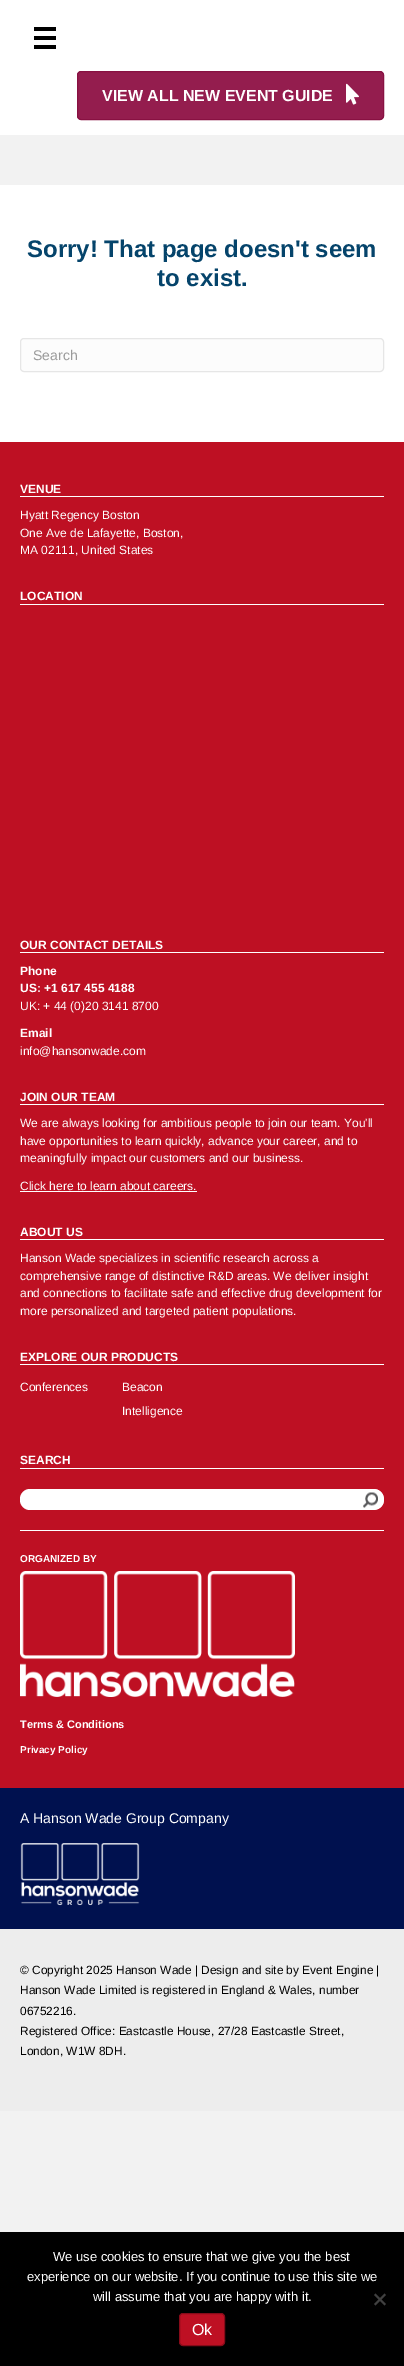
%!PS
<< /PageSize [404 2366] >> setpagedevice
/roundrect { 5 dict begin { /r /h /w /y /x } { exch def } forall
  x r add y moveto x w add y 2 copy h add r arct x w add y h add x 1 index r arct
  x y h add x y r arct x y 2 copy exch w add exch r arct closepath end } def
/picture { 5 dict begin { /h /w /y /x /name } { exch def } forall
  gsave x y translate w h scale
  w h 8 [w 0 0 h 0 0] name (r) file false 3 colorimage grestore end } def
0 2366 translate 1 -1 scale
4 setmiterlimit
0.949 setgray
0 0 404 2366 rectfill
1 setgray
0 0 404 135 rectfill
0 setgray
34 27 22 4 rectfill
34 36 22 4 rectfill
34 45 22 4 rectfill
0.58 0.114 0.306 setrgbcolor
77.5 71.5 306 48 3.5 roundrect gsave fill grestore
0.533 0.067 0.259 setrgbcolor
stroke
/LiberationSans-Bold [16 0 0 -16 0 0] selectfont
1 setgray
102 101 moveto (VIEW ALL NEW EVENT GUIDE) show
(img1.rgb) 346 83 13 22 picture
0 185 404 257 rectfill
/LiberationSans-Bold [24 0 0 -24 0 0] selectfont
0.02 0.267 0.42 setrgbcolor
27 257 moveto (Sorry! That page doesn't seem) show
157 286 moveto (to exist.) show
0.988 setgray
20.5 338.5 363 33 3.5 roundrect gsave fill grestore
0.902 setgray
stroke
/LiberationSans-Regular [14 0 0 -14 0 0] selectfont
0.608 setgray
33 360 moveto (Search) show
0.745 0.063 0.137 setrgbcolor
0 442 404 1346 rectfill
1 setgray
20 496 364 1 rectfill
/LiberationSans-Bold [12 0 0 -12 0 0] selectfont
20 493 moveto (VENUE) show
/LiberationSans-Regular [12 0 0 -12 0 0] selectfont
20 519 moveto (Hyatt Regency Boston) show
20 537 moveto (One Ave de Lafayette, Boston,) show
20 554 moveto (MA 02111, United States) show
20 604 364 1 rectfill
/LiberationSans-Bold [12 0 0 -12 0 0] selectfont
20 600 moveto (LOCATION) show
20 952 364 1 rectfill
20 949 moveto (OUR CONTACT DETAILS) show
20 975 moveto (Phone) show
20 992 moveto (US: +1 617 455 4188) show
/LiberationSans-Regular [12 0 0 -12 0 0] selectfont
20 1010 moveto (UK: + 44 \(0\)20 3141 8700) show
/LiberationSans-Bold [12 0 0 -12 0 0] selectfont
20 1037 moveto (Email) show
/LiberationSans-Regular [12 0 0 -12 0 0] selectfont
20 1055 moveto (info@hansonwade.com) show
20 1104 364 1 rectfill
/LiberationSans-Bold [12 0 0 -12 0 0] selectfont
20 1101 moveto (JOIN OUR TEAM) show
/LiberationSans-Regular [12 0 0 -12 0 0] selectfont
20 1127 moveto (We are always looking for ambitious people to join our team. You'll) show
20 1145 moveto (have opportunities to learn quickly, advance your career, and to) show
20 1162 moveto (meaningfully impact our customers and our business.) show
20 1190 moveto (Click here to learn about careers.) show
20 1191 177 1 rectfill
20 1239 364 1 rectfill
/LiberationSans-Bold [12 0 0 -12 0 0] selectfont
20 1236 moveto (ABOUT US) show
/LiberationSans-Regular [12 0 0 -12 0 0] selectfont
20 1262 moveto (Hanson Wade specializes in scientific research across a) show
20 1280 moveto (comprehensive range of distinctive R&D areas. We deliver insight) show
20 1297 moveto (and connections to facilitate safe and effective drug development for) show
20 1315 moveto (more personalized and targeted patient populations.) show
20 1364 364 1 rectfill
/LiberationSans-Bold [12 0 0 -12 0 0] selectfont
20 1361 moveto (EXPLORE OUR PRODUCTS) show
/LiberationSans-Regular [12 0 0 -12 0 0] selectfont
20 1391 moveto (Conferences) show
122 1391 moveto (Beacon) show
122 1415 moveto (Intelligence) show
20 1468 364 1 rectfill
/LiberationSans-Bold [12 0 0 -12 0 0] selectfont
20 1464 moveto (SEARCH) show
20 1489 364 21 10 roundrect fill
(img2.rgb) 363 1489 21 21 picture
20 1530 364 1 rectfill
/LiberationSans-Bold [10 0 0 -10 0 0] selectfont
20 1562 moveto (ORGANIZED BY) show
(img3.rgb) 20 1571 275 126 picture
/LiberationSans-Bold [11 0 0 -11 0 0] selectfont
20 1728 moveto (Terms & Conditions) show
/LiberationSans-Bold [10 0 0 -10 0 0] selectfont
20 1753 moveto (Privacy Policy) show
0 0.067 0.31 setrgbcolor
0 1788 404 141 rectfill
/LiberationSans-Regular [14 0 0 -14 0 0] selectfont
1 setgray
20 1823 moveto (A Hanson Wade Group Company) show
(img4.rgb) 20 1843 120 63 picture
0.929 setgray
0 1929 404 182 rectfill
/LiberationSans-Regular [11.9 0 0 -11.9 0 0] selectfont
0 setgray
20 1974 moveto (© Copyright 2025 Hanson Wade | Design and site by Event Engine |) show
20 1994 moveto (Hanson Wade Limited is registered in England & Wales, number) show
20 2015 moveto (06752216.) show
20 2035 moveto (Registered Office: Eastcastle House, 27/28 Eastcastle Street,) show
20 2055 moveto (London, W1W 8DH.) show
0 2232 404 134 rectfill
/LiberationSans-Regular [13 0 0 -13 0 0] selectfont
1 setgray
53 2261 moveto (We use cookies to ensure that we give you the best) show
27 2281 moveto (experience on our website. If you continue to use this site we) show
93 2301 moveto (will assume that you are happy with it.) show
0.251 setgray
newpath 384.5 2293.5 moveto 386 2295 lineto 375.5 2305.5 lineto 374 2304 lineto closepath fill
newpath 374 2295 moveto 375.5 2293.5 lineto 386 2304 lineto 384.5 2305.5 lineto closepath fill
0.745 0.063 0.137 setrgbcolor
179.5 2313.5 45 32 3.5 roundrect gsave fill grestore
0.525 0.043 0.098 setrgbcolor
stroke
/LiberationSans-Regular [16 0 0 -16 0 0] selectfont
1 setgray
192 2335 moveto (Ok) show
showpage
